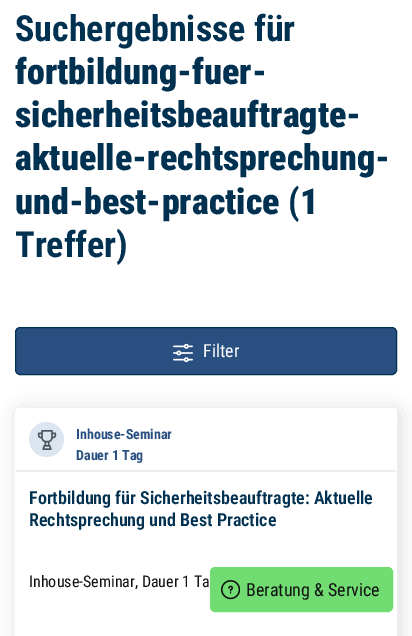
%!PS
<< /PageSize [412 636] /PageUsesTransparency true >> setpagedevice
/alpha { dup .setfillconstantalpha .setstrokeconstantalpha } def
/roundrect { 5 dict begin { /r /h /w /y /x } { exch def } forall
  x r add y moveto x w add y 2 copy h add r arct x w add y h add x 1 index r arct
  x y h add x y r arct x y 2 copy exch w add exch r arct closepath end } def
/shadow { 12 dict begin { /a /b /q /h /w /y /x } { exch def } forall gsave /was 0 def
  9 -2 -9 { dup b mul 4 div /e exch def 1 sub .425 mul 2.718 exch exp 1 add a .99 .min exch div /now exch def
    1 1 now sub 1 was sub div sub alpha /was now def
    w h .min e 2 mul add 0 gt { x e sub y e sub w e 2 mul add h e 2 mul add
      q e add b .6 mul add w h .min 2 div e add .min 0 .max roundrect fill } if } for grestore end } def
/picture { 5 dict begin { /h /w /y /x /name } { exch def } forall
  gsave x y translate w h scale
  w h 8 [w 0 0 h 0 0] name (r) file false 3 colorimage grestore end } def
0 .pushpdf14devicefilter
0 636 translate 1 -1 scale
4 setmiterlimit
1 setgray
0 0 412 636 rectfill
/RobotoCondensed-Bold [36 0 0 -36 0 0] selectfont
0 0.192 0.318 setrgbcolor
15 41 moveto (Suchergebnisse für) show
/RobotoCondensed-Black [36 0 0 -36 0 0] selectfont
15 84 moveto (fortbildung-fuer-) show
15 127 moveto (sicherheitsbeauftragte-) show
15 170 moveto (aktuelle-rechtsprechung-) show
15 214 moveto (und-best-practice) show
/RobotoCondensed-Bold [36 0 0 -36 0 0] selectfont
288 214 moveto (\() show
/RobotoCondensed-Black [36 0 0 -36 0 0] selectfont
300 214 moveto (1) show
/RobotoCondensed-Bold [36 0 0 -36 0 0] selectfont
15 257 moveto (Treffer\)) show
0.161 0.314 0.506 setrgbcolor
15.5 327.5 381 47 4.5 roundrect gsave fill grestore
0 0.192 0.318 setrgbcolor
stroke
(img1.rgb) 173 343 20 20 picture
/RobotoCondensed-Regular [18 0 0 -18 0 0] selectfont
1 setgray
203 357 moveto (Filter) show
gsave
newpath 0 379 moveto 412 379 lineto 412 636 lineto 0 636 lineto closepath 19 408 moveto 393 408 lineto 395 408 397 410 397 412 curveto 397 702 lineto 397 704 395 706 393 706 curveto 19 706 lineto 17 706 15 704 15 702 curveto 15 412 lineto 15 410 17 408 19 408 curveto closepath eoclip newpath
0 setgray
18 410 382 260 4 10 0.15 shadow
grestore
15.5 408.5 381 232 3.5 roundrect stroke
0.867 0.898 0.941 setrgbcolor
newpath 46.5 439.5 17.5 0 360 arc closepath fill
(img2.rgb) 37 430 20 20 picture
/RobotoCondensed-Bold [14 0 0 -14 0 0] selectfont
0.161 0.314 0.506 setrgbcolor
76 439 moveto (Inhouse-Seminar) show
76 460 moveto (Dauer 1 Tag) show
0.929 setgray
16 470 380 2 rectfill
/RobotoCondensed-SemiBold [18 0 0 -18 0 0] selectfont
0 0.192 0.318 setrgbcolor
29 504 moveto (Fortbildung für Sicherheitsbeauftragte: Aktuelle) show
29 526 moveto (Rechtsprechung und Best Practice) show
/RobotoCondensed-Regular [16 0 0 -16 0 0] selectfont
0.067 setgray
29 587 moveto (Inhouse-Seminar, Dauer 1 Ta) show
0.443 0.863 0.443 setrgbcolor
210.5 567.5 182 44 4.5 roundrect gsave fill grestore
stroke
(img3.rgb) 221 580 19 20 picture
/RobotoCondensed-Regular [18 0 0 -18 0 0] selectfont
0.067 setgray
246 596 moveto (Beratung & Service) show
.poppdf14devicefilter showpage
